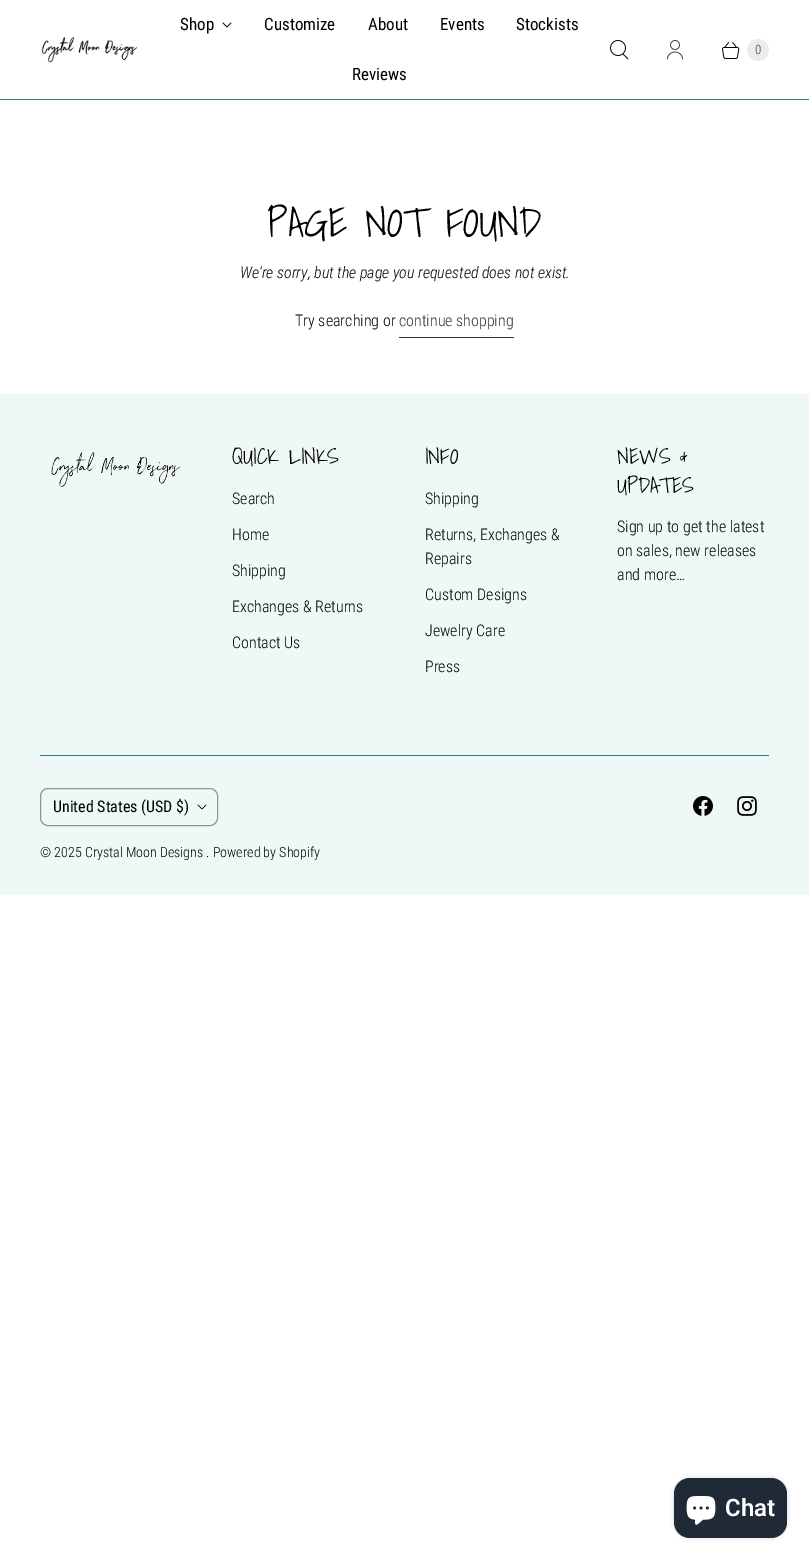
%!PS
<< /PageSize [809 1559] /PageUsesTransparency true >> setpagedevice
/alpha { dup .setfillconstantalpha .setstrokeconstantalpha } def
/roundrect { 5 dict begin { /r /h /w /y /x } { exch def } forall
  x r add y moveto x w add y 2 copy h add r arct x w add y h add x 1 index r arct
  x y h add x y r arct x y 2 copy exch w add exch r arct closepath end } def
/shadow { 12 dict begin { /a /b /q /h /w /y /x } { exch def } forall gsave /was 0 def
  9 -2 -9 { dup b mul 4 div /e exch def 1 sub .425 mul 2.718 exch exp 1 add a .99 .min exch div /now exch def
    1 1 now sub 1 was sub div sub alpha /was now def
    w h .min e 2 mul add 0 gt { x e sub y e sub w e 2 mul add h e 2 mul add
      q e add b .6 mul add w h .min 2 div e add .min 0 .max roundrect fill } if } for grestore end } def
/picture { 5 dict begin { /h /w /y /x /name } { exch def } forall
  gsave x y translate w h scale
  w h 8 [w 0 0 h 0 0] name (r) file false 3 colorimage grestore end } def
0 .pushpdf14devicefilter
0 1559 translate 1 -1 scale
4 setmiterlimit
1 setgray
0 0 809 1559 rectfill
0.169 0.502 0.486 setrgbcolor
0 99 809 1 rectfill
(img1.rgb) 41 37 97 26 picture
/RobotoCondensed-Regular [17 0 0 -17 0 0] selectfont
0 setgray
180 30 moveto (Shop) show
(img2.rgb) 222 22 10 6 picture
264 30 moveto (Customize) show
368 30 moveto (About) show
440 30 moveto (Events) show
516 30 moveto (Stockists) show
352 80 moveto (Reviews) show
(img3.rgb) 610 40 19 20 picture
(img4.rgb) 667 40 16 20 picture
(img5.rgb) 722 42 18 17 picture
0.925 setgray
newpath 758 50 11 0 360 arc closepath fill
/RobotoCondensed-Light [13 0 0 -13 0 0] selectfont
0.251 setgray
755 54 moveto (0) show
/ShadowsIntoLight-Regular [40.75 0 0 -40.75 0 0] selectfont
0 setgray
267 237 moveto (PAGE NOT FOUND) show
/RobotoCondensed-LightItalic [16 0 0 -16 0 0] selectfont
240 278 moveto (We're sorry, but the page you requested does not exist.) show
/RobotoCondensed-Light [16 0 0 -16 0 0] selectfont
295 326 moveto (Try searching or) show
0.196 0.188 0.239 setrgbcolor
399 326 moveto (continue shopping) show
399 337 115 1 rectfill
0.929 0.973 0.969 setrgbcolor
0 394 809 501 rectfill
(img6.rgb) 51 452 130 35 picture
/ShadowsIntoLight-Regular [22 0 0 -22 0 0] selectfont
0 setgray
232 464 moveto (QUICK LINKS) show
/RobotoCondensed-Light [16 0 0 -16 0 0] selectfont
232 504 moveto (Search) show
232 540 moveto (Home) show
232 576 moveto (Shipping) show
232 612 moveto (Exchanges & Returns) show
232 648 moveto (Contact Us) show
/ShadowsIntoLight-Regular [22 0 0 -22 0 0] selectfont
425 464 moveto (INFO) show
/RobotoCondensed-Light [16 0 0 -16 0 0] selectfont
425 504 moveto (Shipping) show
425 540 moveto (Returns, Exchanges &) show
425 564 moveto (Repairs) show
425 600 moveto (Custom Designs) show
425 636 moveto (Jewelry Care) show
425 672 moveto (Press) show
/ShadowsIntoLight-Regular [22 0 0 -22 0 0] selectfont
617 464 moveto (NEWS &) show
617 493 moveto (UPDATES) show
/RobotoCondensed-Light [16 0 0 -16 0 0] selectfont
617 532 moveto (Sign up to get the latest) show
617 556 moveto (on sales, new releases) show
617 580 moveto (and more…) show
0.169 0.502 0.486 setrgbcolor
40 755 729 1 rectfill
0.557 0.584 0.58 setrgbcolor
40.5 788.5 177 37 7.5 roundrect stroke
/RobotoCondensed-Regular [16 0 0 -16 0 0] selectfont
0 setgray
53 812 moveto (United States \(USD $\)) show
(img7.rgb) 197 804 10 6 picture
/RobotoCondensed-Light [14 0 0 -14 0 0] selectfont
40 857 moveto (© 2025 Crystal Moon Designs . Powered by Shopify) show
(img8.rgb) 693 796 20 20 picture
(img9.rgb) 737 796 20 20 picture
674 1478 113 60 16 2.5 0.15 shadow
0.125 0.165 0.212 setrgbcolor
674 1478 113 60 16 roundrect fill
(img10.rgb) 686 1496 30 29 picture
/Roboto-SemiBold [24 0 0 -24 0 0] selectfont
1 setgray
725 1516 moveto (Chat) show
.poppdf14devicefilter showpage
